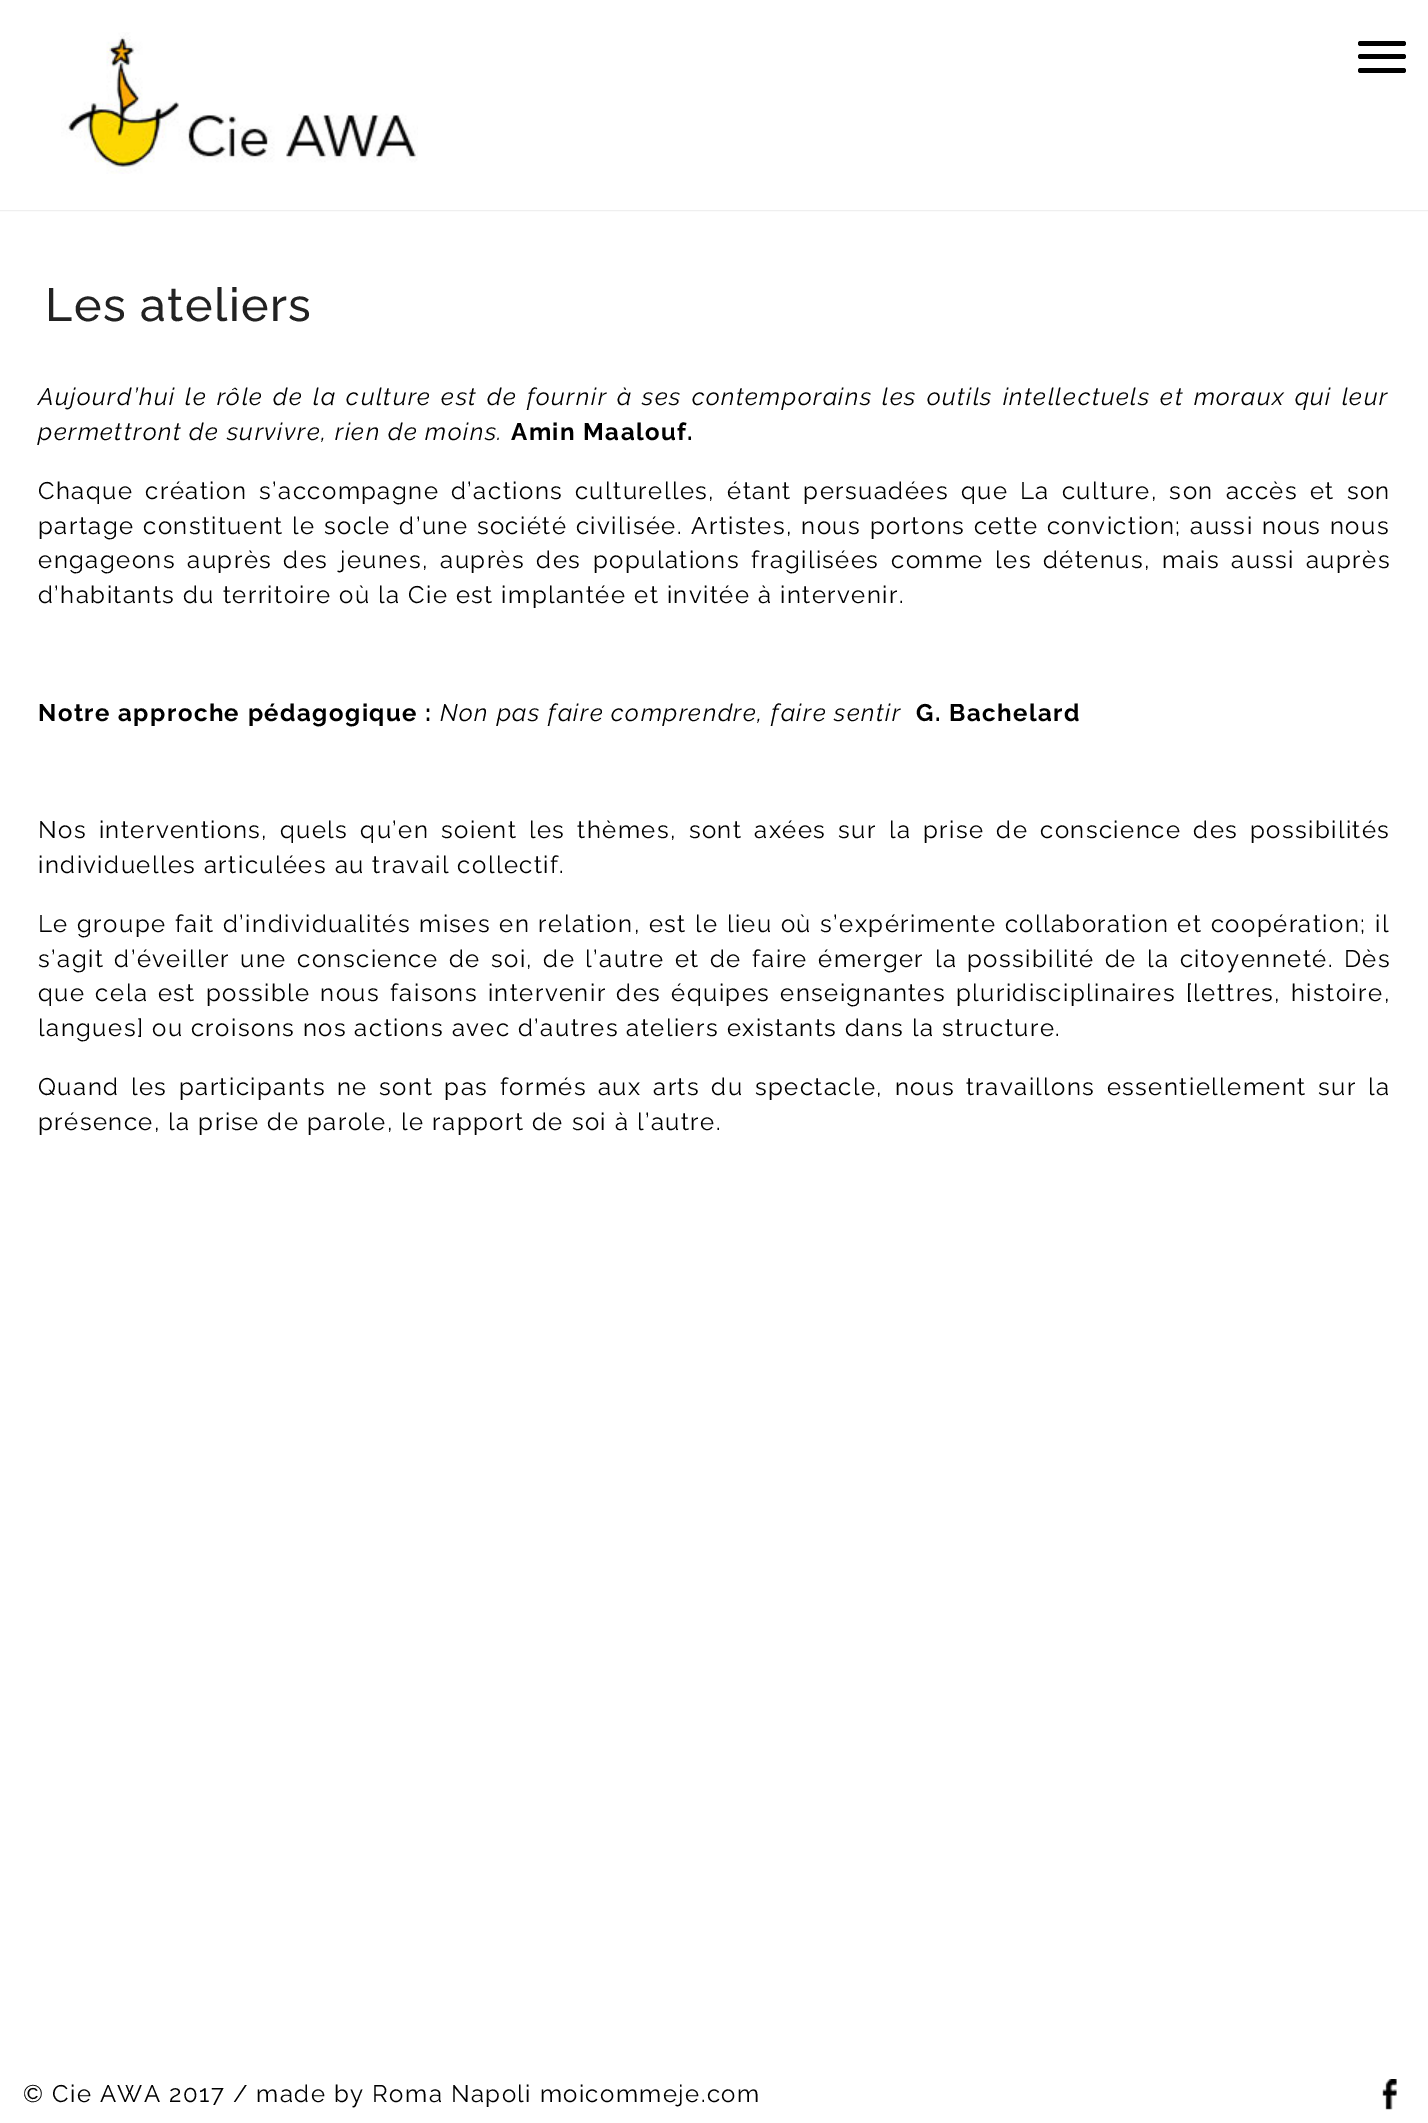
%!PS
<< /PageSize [1428 2123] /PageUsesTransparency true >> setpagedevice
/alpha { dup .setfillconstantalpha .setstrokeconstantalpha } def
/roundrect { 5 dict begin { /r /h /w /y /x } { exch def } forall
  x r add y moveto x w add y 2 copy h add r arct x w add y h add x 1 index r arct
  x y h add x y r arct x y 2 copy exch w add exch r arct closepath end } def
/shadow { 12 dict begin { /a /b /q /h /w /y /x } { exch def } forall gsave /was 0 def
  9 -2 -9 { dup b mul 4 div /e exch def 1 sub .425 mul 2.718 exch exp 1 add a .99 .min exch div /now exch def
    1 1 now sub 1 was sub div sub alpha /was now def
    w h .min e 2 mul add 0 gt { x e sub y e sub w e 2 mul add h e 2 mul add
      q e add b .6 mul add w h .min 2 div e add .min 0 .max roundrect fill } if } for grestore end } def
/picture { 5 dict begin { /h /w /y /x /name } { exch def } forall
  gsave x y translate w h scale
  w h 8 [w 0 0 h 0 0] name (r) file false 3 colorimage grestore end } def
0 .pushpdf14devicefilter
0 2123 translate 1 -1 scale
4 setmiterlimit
1 setgray
0 0 1428 2123 rectfill
gsave
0 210 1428 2 rectclip
0.8 setgray
0 0 1428 210 0 1 1 shadow
grestore
(img1.rgb) 61 32 357 142 picture
0 setgray
1358 54 48 5 2.5 roundrect fill
1358 41 48 5 2.5 roundrect fill
1358 68 48 5 2.5 roundrect fill
/Raleway-Medium [46.5 0 0 -46.5 0 0] selectfont
0.133 setgray
45 321 moveto 1.46 0 (Les ateliers) ashow
/Raleway-Italic [24 0 0 -24 0 0] selectfont
0 setgray
38 405 moveto 2.25 0 32 1.46 0 (Aujourd’hui le rôle de la culture est de fournir à ses contemporains les outils intellectuels et moraux qui leur) awidthshow
38 440 moveto 1.46 0 (permettront de survivre, rien de moins.) ashow
/Raleway-Bold [24 0 0 -24 0 0] selectfont
511 440 moveto 1.46 0 (Amin Maalouf.) ashow
/Raleway-Regular [24 0 0 -24 0 0] selectfont
38 499 moveto 4.25 0 32 1.46 0 (Chaque création s’accompagne d’actions culturelles, étant persuadées que La culture, son accès et son) awidthshow
38 534 moveto 0.8 0 32 1.46 0 (partage constituent le socle d’une société civilisée. Artistes, nous portons cette conviction; aussi nous nous) awidthshow
38 568 moveto 3.75 0 32 1.46 0 (engageons auprès des jeunes, auprès des populations fragilisées comme les détenus, mais aussi auprès) awidthshow
38 603 moveto 1.46 0 (d’habitants du territoire où la Cie est implantée et invitée à intervenir.) ashow
/Raleway-Bold [24 0 0 -24 0 0] selectfont
38 721 moveto 1.46 0 (Notre approche pédagogique :) ashow
/Raleway-Italic [24 0 0 -24 0 0] selectfont
440 721 moveto 1.46 0 (Non pas faire comprendre, faire sentir) ashow
/Raleway-Bold [24 0 0 -24 0 0] selectfont
916 721 moveto 1.46 0 (G. Bachelard) ashow
/Raleway-Regular [24 0 0 -24 0 0] selectfont
38 838 moveto 4.25 0 32 1.46 0 (Nos interventions, quels qu’en soient les thèmes, sont axées sur la prise de conscience des possibilités) awidthshow
38 873 moveto 1.46 0 (individuelles articulées au travail collectif.) ashow
38 932 moveto 0.6 0 32 1.46 0 (Le groupe fait d’individualités mises en relation, est le lieu où s’expérimente collaboration et coopération; il) awidthshow
38 967 moveto 2.6 0 32 1.46 0 (s’agit d’éveiller une conscience de soi, de l’autre et de faire émerger la possibilité de la citoyenneté. Dès) awidthshow
38 1001 moveto 2.25 0 32 1.46 0 (que cela est possible nous faisons intervenir des équipes enseignantes pluridisciplinaires [lettres, histoire,) awidthshow
38 1036 moveto 1.46 0 (langues] ou croisons nos actions avec d’autres ateliers existants dans la structure.) ashow
38 1095 moveto 3.75 0 32 1.46 0 (Quand les participants ne sont pas formés aux arts du spectacle, nous travaillons essentiellement sur la) awidthshow
38 1130 moveto 1.46 0 (présence, la prise de parole, le rapport de soi à l’autre.) ashow
23 2102 moveto 1.46 0 (© Cie AWA 2017 / made by Roma Napoli moicommeje.com) ashow
(img2.rgb) 1382 2079 15 31 picture
.poppdf14devicefilter showpage
